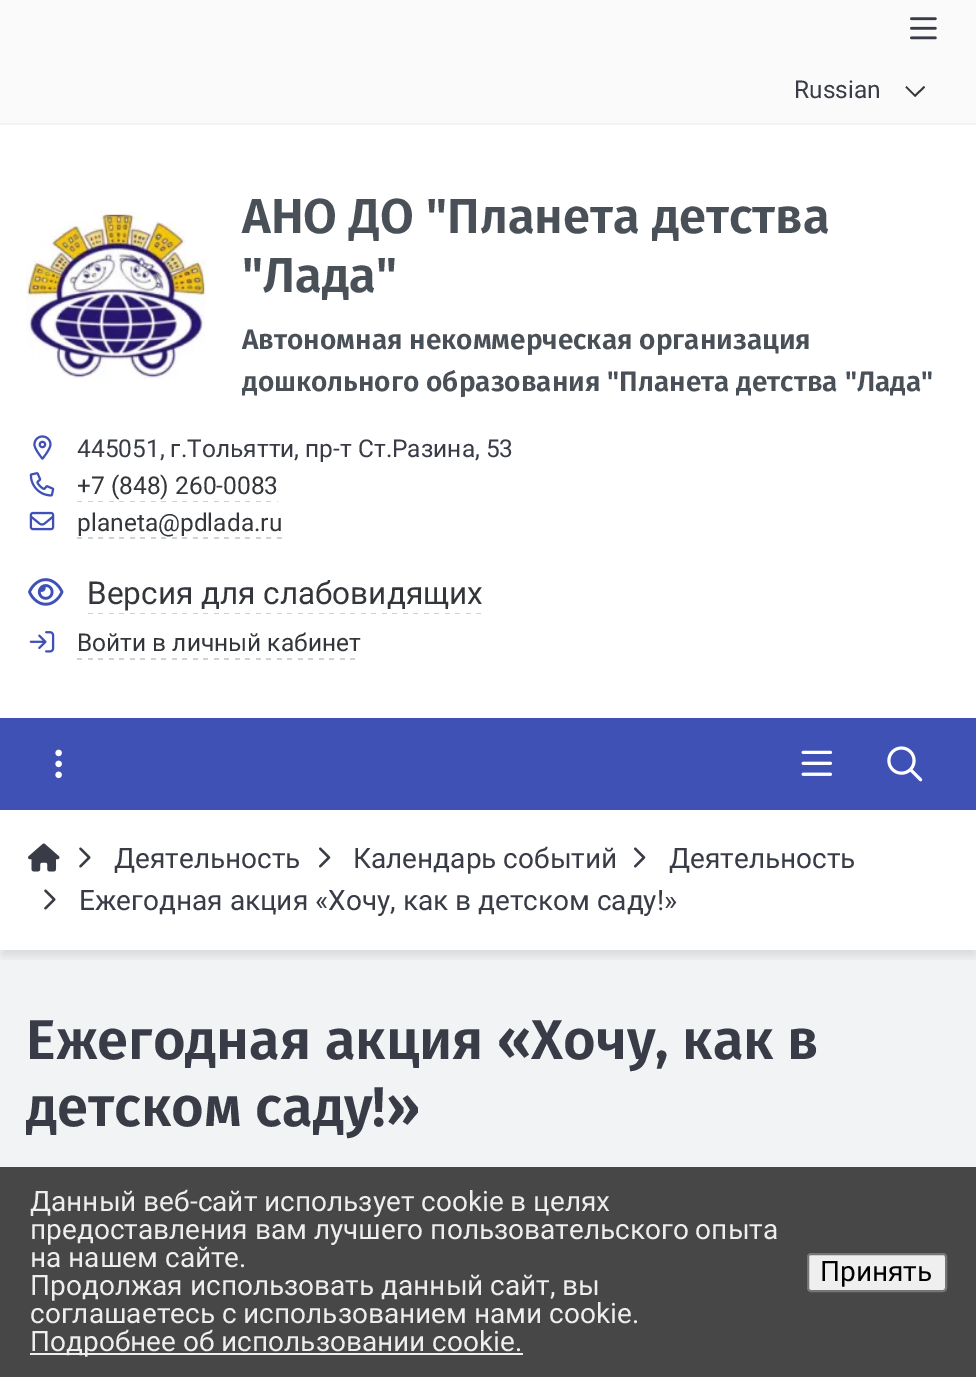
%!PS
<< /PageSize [976 1377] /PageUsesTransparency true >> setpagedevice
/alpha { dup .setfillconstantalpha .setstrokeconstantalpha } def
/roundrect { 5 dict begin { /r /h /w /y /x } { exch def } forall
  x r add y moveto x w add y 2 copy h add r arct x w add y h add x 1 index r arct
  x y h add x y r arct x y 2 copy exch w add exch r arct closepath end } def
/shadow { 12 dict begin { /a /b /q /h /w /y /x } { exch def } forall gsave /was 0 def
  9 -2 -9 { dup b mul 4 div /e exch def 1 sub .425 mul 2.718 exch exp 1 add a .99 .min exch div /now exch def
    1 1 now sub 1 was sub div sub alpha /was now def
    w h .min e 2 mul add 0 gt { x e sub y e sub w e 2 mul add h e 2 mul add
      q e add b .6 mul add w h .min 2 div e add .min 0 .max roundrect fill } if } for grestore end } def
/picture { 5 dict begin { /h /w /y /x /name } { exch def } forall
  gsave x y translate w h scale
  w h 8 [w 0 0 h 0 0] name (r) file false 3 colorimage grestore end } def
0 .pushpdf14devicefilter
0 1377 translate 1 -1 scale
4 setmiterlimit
0.945 0.953 0.961 setrgbcolor
0 0 976 1377 rectfill
1 setgray
0 125 976 825 rectfill
0.961 setgray
0 124 976 1 rectfill
0.98 setgray
0 0 976 123 rectfill
0.941 setgray
0 123 976 1 rectfill
(img1.rgb) 910 17 27 23 picture
/Roboto-Regular [24.5 0 0 -24.5 0 0] selectfont
0.224 0.235 0.278 setrgbcolor
794 98 moveto (Russian) show
0.2 0.212 0.231 setrgbcolor
newpath 925 87.5 moveto 915 97 lineto 915 94.5 lineto 924 86 lineto closepath 915 97 moveto 905.5 87.5 lineto 906.5 86 lineto 915 94.5 lineto closepath fill
(img2.rgb) 26 211 180 169 picture
/FiraSans-SemiBold [49 0 0 -49 0 0] selectfont
0.286 0.314 0.341 setrgbcolor
242 233 moveto (АНО ДО "Планета детства) show
242 292 moveto ("Лада") show
/FiraSans-SemiBold [28 0 0 -28 0 0] selectfont
242 349 moveto (Автономная некоммерческая организация) show
242 391 moveto (дошкольного образования "Планета детства "Лада") show
(img3.rgb) 33 435 19 25 picture
/Roboto-Regular [24.5 0 0 -24.5 0 0] selectfont
0.224 0.235 0.278 setrgbcolor
77 457 moveto (445051, г.Тольятти, пр-т Ст.Разина, 53) show
(img4.rgb) 29 472 26 25 picture
0.2 0.216 0.231 setrgbcolor
77 494 moveto (+7 \(848\) 260-0083) show
0.816 0.82 0.824 setrgbcolor
77 501 5 1 rectfill
88 501 5 1 rectfill
98 501 5 1 rectfill
109 501 5 1 rectfill
119 501 5 1 rectfill
130 501 5 1 rectfill
140 501 5 1 rectfill
151 501 5 1 rectfill
161 501 5 1 rectfill
172 501 5 1 rectfill
182 501 5 1 rectfill
193 501 5 1 rectfill
203 501 5 1 rectfill
214 501 5 1 rectfill
224 501 5 1 rectfill
235 501 5 1 rectfill
245 501 5 1 rectfill
256 501 5 1 rectfill
266 501 5 1 rectfill
277 501 1 1 rectfill
(img5.rgb) 29 511 26 20 picture
0.2 0.216 0.231 setrgbcolor
77 531 moveto (planeta@pdlada.ru) show
0.816 0.82 0.824 setrgbcolor
77 537 5 2 rectfill
88 537 5 2 rectfill
98 537 5 2 rectfill
109 537 5 2 rectfill
119 537 5 2 rectfill
130 537 5 2 rectfill
140 537 5 2 rectfill
151 537 5 2 rectfill
161 537 5 2 rectfill
172 537 5 2 rectfill
182 537 5 2 rectfill
193 537 5 2 rectfill
203 537 5 2 rectfill
214 537 5 2 rectfill
224 537 5 2 rectfill
235 537 5 2 rectfill
245 537 5 2 rectfill
256 537 5 2 rectfill
266 537 5 2 rectfill
277 537 5 2 rectfill
(img6.rgb) 28 578 36 28 picture
/Roboto-Regular [31.5 0 0 -31.5 0 0] selectfont
0.2 0.216 0.231 setrgbcolor
87 604 moveto (Версия для слабовидящих) show
(img7.rgb) 88 613 393 1 picture
(img8.rgb) 29 631 26 22 picture
/Roboto-Regular [24.5 0 0 -24.5 0 0] selectfont
77 651 moveto (Войти в личный кабинет) show
(img9.rgb) 77 658 278 2 picture
gsave
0 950 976 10 rectclip
0 setgray
2 819 973 137 0 5 0.1 shadow
grestore
0.247 0.318 0.71 setrgbcolor
0 718 976 92 rectfill
(img10.rgb) 55 749 7 30 picture
(img11.rgb) 801 750 32 26 picture
(img12.rgb) 887 746 36 36 picture
(img13.rgb) 28 843 32 29 picture
(img14.rgb) 79 847 12 21 picture
/Roboto-Regular [28 0 0 -28 0 0] selectfont
0.224 0.235 0.278 setrgbcolor
114 868 moveto (Деятельность) show
(img15.rgb) 319 847 12 21 picture
353 868 moveto (Календарь событий) show
(img15.rgb) 634 847 12 21 picture
669 868 moveto (Деятельность) show
(img14.rgb) 44 889 12 21 picture
79 910 moveto (Ежегодная акция «Хочу, как в детском саду!») show
/FiraSans-SemiBold [56 0 0 -56 0 0] selectfont
26 1059 moveto (Ежегодная акция «Хочу, как в) show
26 1126 moveto (детском саду!») show
0.278 setgray
0 1167 976 210 rectfill
/Roboto-Regular [28 0 0 -28 0 0] selectfont
0.933 setgray
30 1211 moveto (Данный веб-сайт использует cookie в целях) show
30 1239 moveto (предоставления вам лучшего пользовательского опыта) show
30 1267 moveto (на нашем сайте.) show
30 1295 moveto (Продолжая использовать данный сайт, вы) show
30 1323 moveto (соглашаетесь с использованием нами cookie.) show
30 1353 493 2 rectfill
30 1351 moveto (Подробнее об использовании cookie.) show
0.937 setgray
808 1254 138 37 3 roundrect gsave fill grestore
0.463 setgray
2 setlinewidth
stroke
0 setgray
820 1281 moveto (Принять) show
.poppdf14devicefilter showpage
